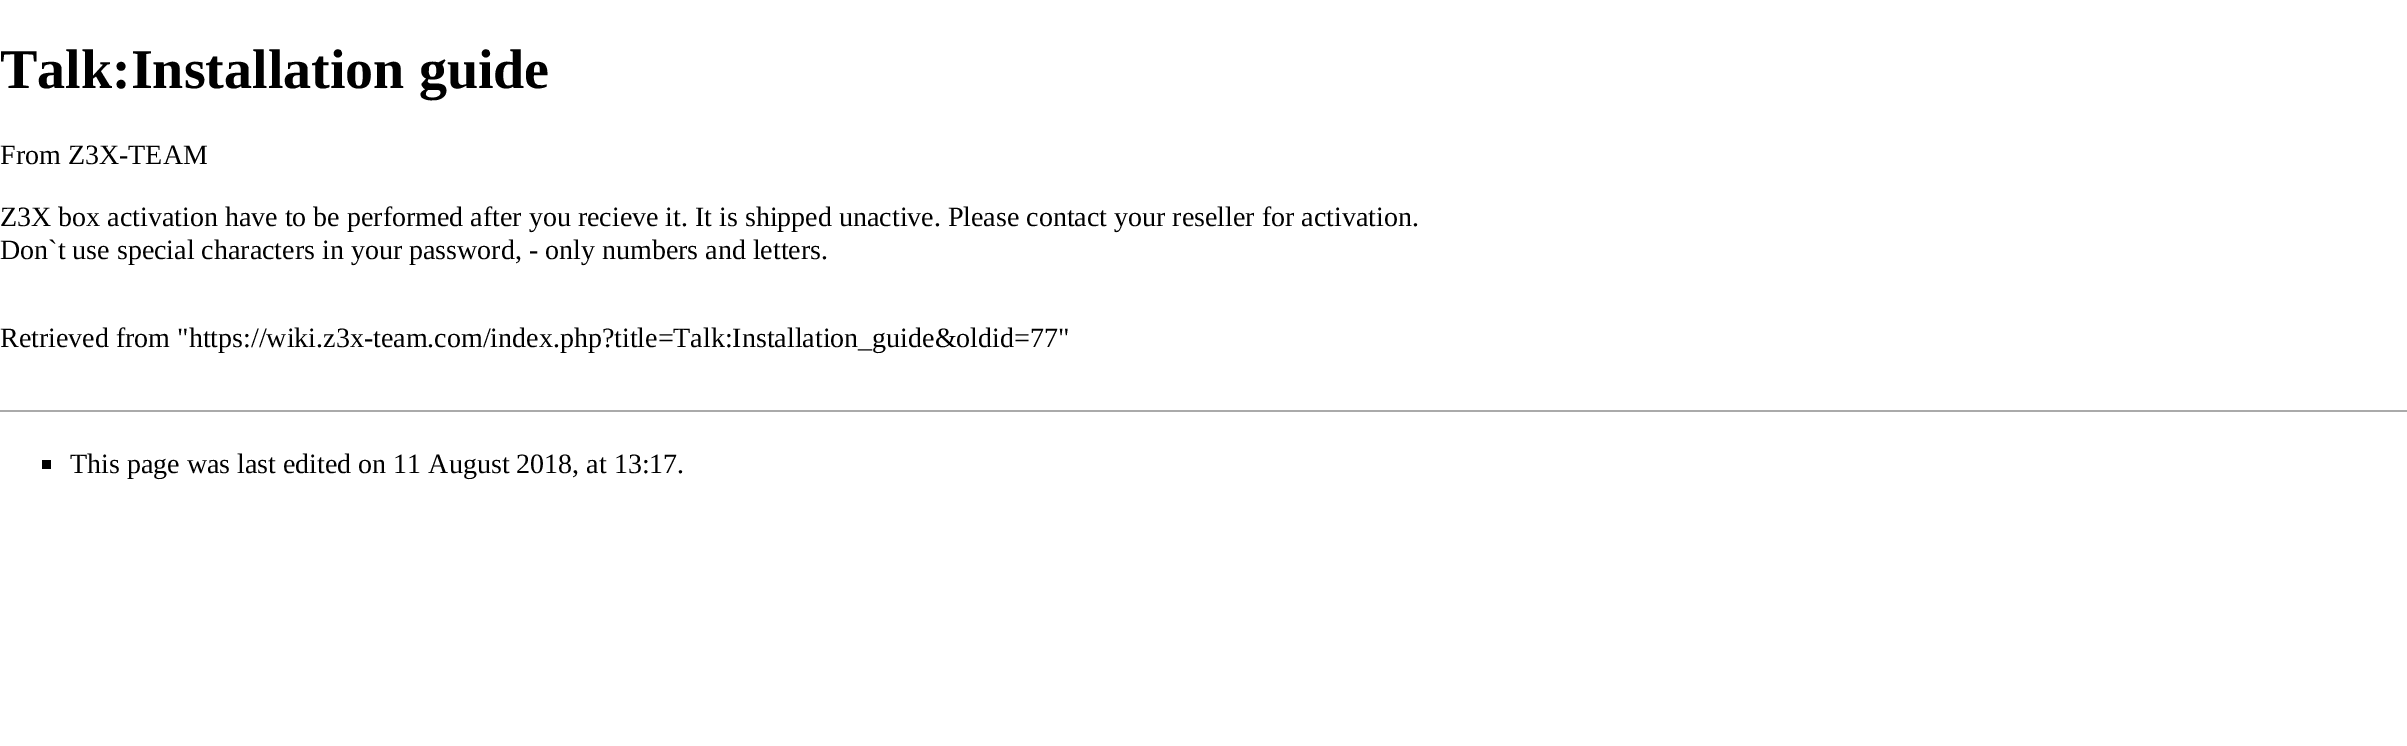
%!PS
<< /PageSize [2407 746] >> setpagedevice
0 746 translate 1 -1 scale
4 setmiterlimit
1 setgray
0 0 2407 746 rectfill
/LiberationSerif-Bold [56 0 0 -56 0 0] selectfont
0 setgray
0 88 moveto (Talk:Installation guide) show
/LiberationSerif-Regular [28 0 0 -28 0 0] selectfont
0 164 moveto (From Z3X-TEAM) show
0 226 moveto (Z3X box activation have to be performed after you recieve it. It is shipped unactive. Please contact your reseller for activation.) show
0 259 moveto (Don`t use special characters in your password, - only numbers and letters.) show
0 347 moveto (Retrieved from "https://wiki.z3x-team.com/index.php?title=Talk:Installation_guide&oldid=77") show
0.667 setgray
0 410 2407 2 rectfill
0 setgray
42 460 9 9 rectfill
70 473 moveto (This page was last edited on 11 August 2018, at 13:17.) show
showpage
